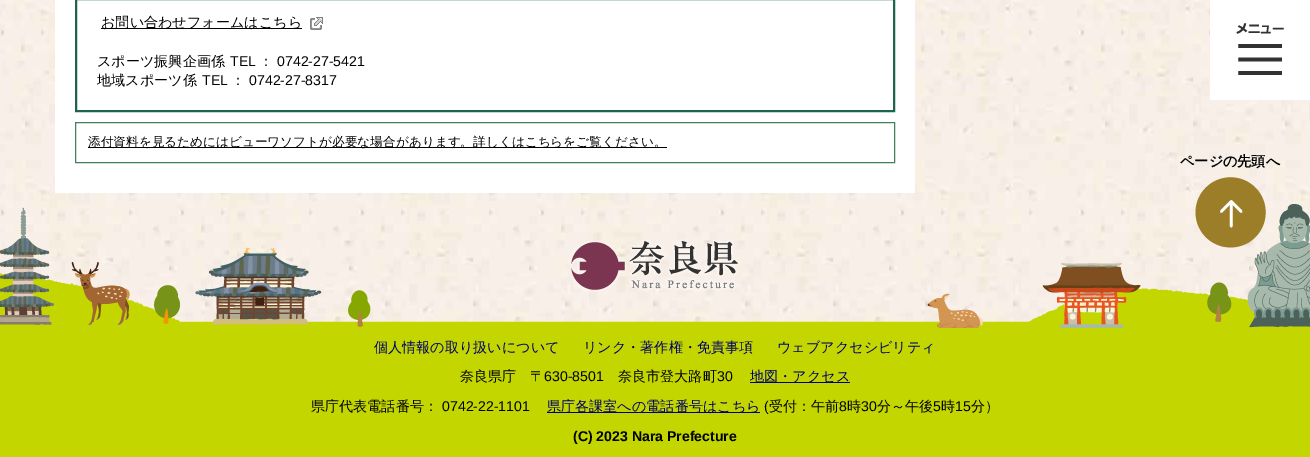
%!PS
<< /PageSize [1310 457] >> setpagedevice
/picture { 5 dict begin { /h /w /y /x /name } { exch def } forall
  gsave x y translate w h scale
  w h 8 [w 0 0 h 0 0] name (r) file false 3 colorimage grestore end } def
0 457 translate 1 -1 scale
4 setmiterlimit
1 setgray
0 0 1310 457 rectfill
(img1.rgb) 0 0 1310 322 picture
55 0 860 193 rectfill
0.122 0.396 0.294 setrgbcolor
2 setlinewidth
76 -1 818 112 rectstroke
0 setgray
101 28 201 1 rectfill
/WenQuanYiZenHei-Medium [14.1 0 0 -14.1 0 0] selectfont
101 27 moveto (お問い合わせフォームはこちら) show
(img2.rgb) 310 17 13 13 picture
97 66 moveto (スポーツ振興企画係) show
/LiberationSans-Regular [14.1 0 0 -14.1 0 0] selectfont
230 66 moveto (TEL) show
/WenQuanYiZenHei-Medium [14.1 0 0 -14.1 0 0] selectfont
259 66 moveto (：) show
/LiberationSans-Regular [14.1 0 0 -14.1 0 0] selectfont
277 66 moveto (0742-27-5421) show
/WenQuanYiZenHei-Medium [14.1 0 0 -14.1 0 0] selectfont
97 85 moveto (地域スポーツ係) show
/LiberationSans-Regular [14.1 0 0 -14.1 0 0] selectfont
202 85 moveto (TEL) show
/WenQuanYiZenHei-Medium [14.1 0 0 -14.1 0 0] selectfont
231 85 moveto (：) show
/LiberationSans-Regular [14.1 0 0 -14.1 0 0] selectfont
249 85 moveto (0742-27-8317) show
0.259 0.51 0.353 setrgbcolor
1 setlinewidth
75.5 122.5 819 40 rectstroke
0 setgray
88 147 579 1 rectfill
/WenQuanYiZenHei-Medium [12.65 0 0 -12.65 0 0] selectfont
88 146 moveto (添付資料を見るためにはビューワソフトが必要な場合があります。詳しくはこちらをご覧ください。) show
(img3.rgb) 1210 0 100 100 picture
(img5.rgb) 0 204 1310 124 picture
(img4.rgb) 1195 177 71 71 picture
/WenQuanYiZenHei-Bold [14.1 0 0 -14.1 0 0] selectfont
1180 166 moveto (ページの先頭へ) show
(img6.rgb) 569 239 171 53 picture
0.765 0.839 0 setrgbcolor
0 328 1310 129 rectfill
/WenQuanYiZenHei-Medium [14.1 0 0 -14.1 0 0] selectfont
0 0 0.4 setrgbcolor
374 352 moveto (個人情報の取り扱いについて) show
583 352 moveto (リンク・著作権・免責事項) show
777 352 moveto (ウェブアクセシビリティ) show
0 setgray
460 381 moveto (奈良県庁　〒) show
/LiberationSans-Regular [14.1 0 0 -14.1 0 0] selectfont
544 381 moveto (630-8501) show
/WenQuanYiZenHei-Medium [14.1 0 0 -14.1 0 0] selectfont
618 381 moveto (奈良市登大路町) show
/LiberationSans-Regular [14.1 0 0 -14.1 0 0] selectfont
717 381 moveto (30) show
0 0 0.4 setrgbcolor
750 382 100 1 rectfill
/WenQuanYiZenHei-Medium [14.1 0 0 -14.1 0 0] selectfont
750 381 moveto (地図・アクセス) show
0 setgray
311 411 moveto (県庁代表電話番号：) show
/LiberationSans-Regular [14.1 0 0 -14.1 0 0] selectfont
442 411 moveto (0742-22-1101) show
0 0 0.4 setrgbcolor
547 412 213 1 rectfill
/WenQuanYiZenHei-Medium [14.1 0 0 -14.1 0 0] selectfont
547 411 moveto (県庁各課室への電話番号はこちら) show
/LiberationSans-Regular [14.1 0 0 -14.1 0 0] selectfont
0 setgray
764 411 moveto (\() show
/WenQuanYiZenHei-Medium [14.1 0 0 -14.1 0 0] selectfont
769 411 moveto (受付：午前) show
/LiberationSans-Regular [14.1 0 0 -14.1 0 0] selectfont
839 411 moveto (8) show
/WenQuanYiZenHei-Medium [14.1 0 0 -14.1 0 0] selectfont
847 411 moveto (時) show
/LiberationSans-Regular [14.1 0 0 -14.1 0 0] selectfont
861 411 moveto (30) show
/WenQuanYiZenHei-Medium [14.1 0 0 -14.1 0 0] selectfont
877 411 moveto (分～午後) show
/LiberationSans-Regular [14.1 0 0 -14.1 0 0] selectfont
933 411 moveto (5) show
/WenQuanYiZenHei-Medium [14.1 0 0 -14.1 0 0] selectfont
941 411 moveto (時) show
/LiberationSans-Regular [14.1 0 0 -14.1 0 0] selectfont
955 411 moveto (15) show
/WenQuanYiZenHei-Medium [14.1 0 0 -14.1 0 0] selectfont
971 411 moveto (分）) show
/LiberationSans-Bold [14.1 0 0 -14.1 0 0] selectfont
573 441 moveto (\(C\) 2023 Nara Prefecture) show
showpage
